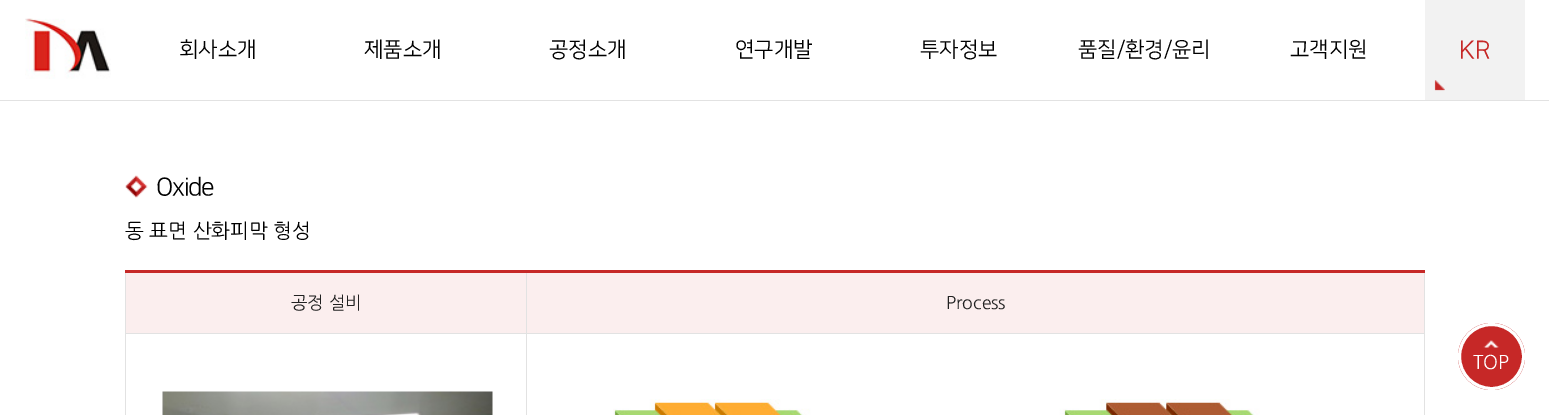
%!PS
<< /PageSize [1549 415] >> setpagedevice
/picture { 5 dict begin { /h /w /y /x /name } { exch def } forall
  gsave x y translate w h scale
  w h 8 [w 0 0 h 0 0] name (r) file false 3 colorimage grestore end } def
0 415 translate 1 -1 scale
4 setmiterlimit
1 setgray
0 0 1549 415 rectfill
0.886 setgray
0 100 1549 1 rectfill
/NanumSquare-Regular [21.25 0 0 -21.25 0 0] selectfont
0 setgray
179 56 moveto (회사소개) show
364 56 moveto (제품소개) show
549 56 moveto (공정소개) show
735 56 moveto (연구개발) show
920 56 moveto (투자정보) show
1078 56 moveto (품질/환경/윤리) show
1290 56 moveto (고객지원) show
(img1.rgb) 25 18 86 61 picture
0.949 setgray
1425 0 100 100 rectfill
(img2.rgb) 1434 80 11 11 picture
/NanumSquare-Regular [25 0 0 -25 0 0] selectfont
0.776 0.157 0.153 setrgbcolor
1459 58 moveto (KR) show
(img3.rgb) 125 175 23 23 picture
0 setgray
156 195 moveto -1.25 0 (Oxide) ashow
/NanumGothic-Regular [20 0 0 -20 0 0] selectfont
125 238 moveto (동 표면 산화피막 형성) show
0.886 setgray
526 333 899 1 rectfill
526 333 1 82 rectfill
125 333 403 1 rectfill
125 271 1 144 rectfill
1424 271 1 144 rectfill
0.984 0.933 0.933 setrgbcolor
126 273 1298 60 rectfill
0.886 setgray
526 271 1 63 rectfill
0.776 0.157 0.153 setrgbcolor
125 270 1300 3 rectfill
(img4.rgb) 162 391 331 24 picture
(img5.rgb) 613 399 647 16 picture
/NanumGothic-Regular [17.5 0 0 -17.5 0 0] selectfont
0.129 setgray
291 309 moveto (공정 설비) show
946 309 moveto (Process) show
0.776 0.157 0.153 setrgbcolor
newpath 1491.5 356.5 33.5 0 360 arc closepath fill
(img6.rgb) 1483 340 16 8 picture
1 setgray
3 setlinewidth
newpath 1491.5 356.5 32 0 360 arc closepath stroke
/NanumGothic-Regular [19 0 0 -19 0 0] selectfont
1473 369 moveto (TOP) show
showpage
